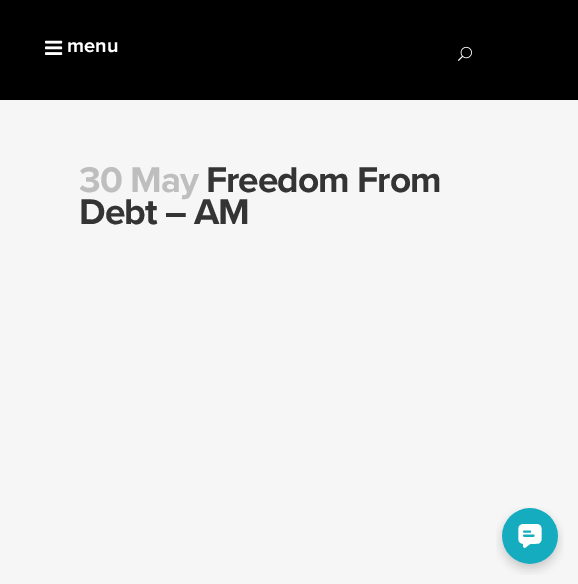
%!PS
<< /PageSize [578 584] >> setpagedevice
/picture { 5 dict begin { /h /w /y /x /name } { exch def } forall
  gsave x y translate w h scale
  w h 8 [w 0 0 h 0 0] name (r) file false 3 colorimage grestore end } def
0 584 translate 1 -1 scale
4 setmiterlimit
0.965 setgray
0 0 578 584 rectfill
0 setgray
0 0 578 100 rectfill
(img1.rgb) 45 40 18 15 picture
/ProximaNova-Bold [20 0 0 -20 0 0] selectfont
1 setgray
67 52 moveto (menu) show
(img2.rgb) 458 46 14 15 picture
/ProximaNova-Bold [37 0 0 -37 0 0] selectfont
0.745 setgray
79 192 moveto -1 0 (30 May) ashow
0.204 setgray
206 192 moveto -1 0 (Freedom From) ashow
79 224 moveto -1 0 (Debt – AM) ashow
(img3.rgb) 496 507 68 68 picture
showpage
